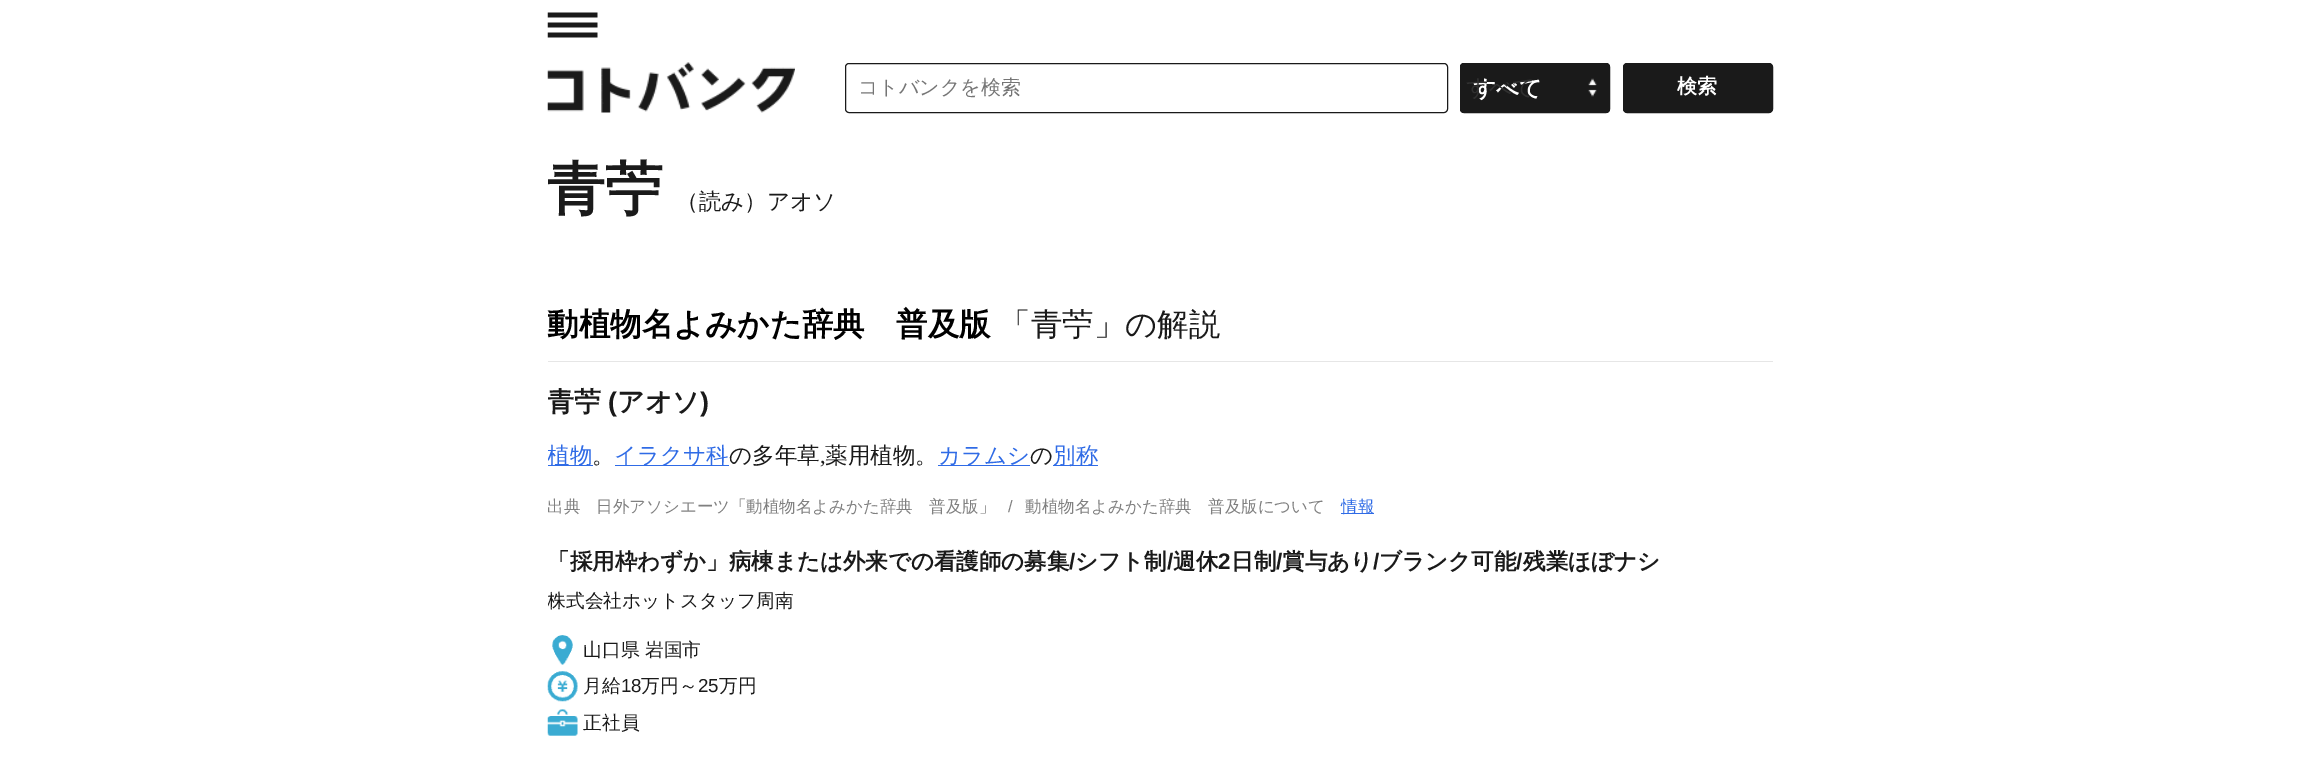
%!PS
<< /PageSize [2318 771] >> setpagedevice
/roundrect { 5 dict begin { /r /h /w /y /x } { exch def } forall
  x r add y moveto x w add y 2 copy h add r arct x w add y h add x 1 index r arct
  x y h add x y r arct x y 2 copy exch w add exch r arct closepath end } def
/picture { 5 dict begin { /h /w /y /x /name } { exch def } forall
  gsave x y translate w h scale
  w h 8 [w 0 0 h 0 0] name (r) file false 3 colorimage grestore end } def
0 771 translate 1 -1 scale
4 setmiterlimit
1 setgray
0 0 2318 771 rectfill
(img1.rgb) 547 12 51 26 picture
(img2.rgb) 547 62 248 51 picture
0.102 setgray
845.5 63.5 602 49 3.5 roundrect stroke
/WenQuanYiZenHei-Medium [20 0 0 -20 0 0] selectfont
0.459 setgray
858 94 moveto (コトバンクを検索) show
0.102 setgray
1460 63 150 50 4 roundrect fill
(img3.rgb) 1588 78 9 19 picture
1460.5 63.5 149 49 3.5 roundrect stroke
/WenQuanYiZenHei-Bold [22.5 0 0 -22.5 0 0] selectfont
1 setgray
1473 96 moveto (すべて) show
/WenQuanYiZenHei-Medium [22.5 0 0 -22.5 0 0] selectfont
0.188 setgray
1466 95 moveto (すべて) show
0.102 setgray
1623.5 63.5 149 49 3.5 roundrect gsave fill grestore
stroke
/WenQuanYiZenHei-Bold [20 0 0 -20 0 0] selectfont
1 setgray
1677 93 moveto (検索) show
/WenQuanYiZenHei-Bold [58 0 0 -58 0 0] selectfont
0.102 setgray
547 209 moveto (青苧) show
/WenQuanYiZenHei-Medium [22.5 0 0 -22.5 0 0] selectfont
676 209 moveto (（読み）アオソ) show
0.902 setgray
548 361 1225 1 rectfill
/WenQuanYiZenHei-Bold [31.5 0 0 -31.5 0 0] selectfont
0 setgray
547 335 moveto (動植物名よみかた辞典　普及版) show
/WenQuanYiZenHei-Medium [31.5 0 0 -31.5 0 0] selectfont
0.102 setgray
999 335 moveto (「青苧」の解説) show
gsave
548 0 1225 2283 rectclip
/WenQuanYiZenHei-Bold [27 0 0 -27 0 0] selectfont
547 411 moveto (青苧) show
grestore
/LiberationSans-Bold [27 0 0 -27 0 0] selectfont
608 411 moveto (\() show
/WenQuanYiZenHei-Bold [27 0 0 -27 0 0] selectfont
617 411 moveto (アオソ) show
/LiberationSans-Bold [27 0 0 -27 0 0] selectfont
700 411 moveto (\)) show
0.184 0.42 0.902 setrgbcolor
548 465 45 1 rectfill
gsave
548 0 1225 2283 rectclip
/WenQuanYiZenHei-Medium [22.5 0 0 -22.5 0 0] selectfont
547 463 moveto (植物) show
grestore
/WenQuanYiZenHei-Medium [22.5 0 0 -22.5 0 0] selectfont
0.102 setgray
592 463 moveto (。) show
0.184 0.42 0.902 setrgbcolor
615 465 114 1 rectfill
614 463 moveto (イラクサ科) show
0.102 setgray
729 463 moveto (の多年草) show
/LiberationSerif-Regular [22.5 0 0 -22.5 0 0] selectfont
820 463 moveto (,) show
/WenQuanYiZenHei-Medium [22.5 0 0 -22.5 0 0] selectfont
825 463 moveto (薬用植物。) show
0.184 0.42 0.902 setrgbcolor
938 465 92 1 rectfill
938 463 moveto (カラムシ) show
0.102 setgray
1030 463 moveto (の) show
0.184 0.42 0.902 setrgbcolor
1053 465 45 1 rectfill
1053 463 moveto (別称) show
/WenQuanYiZenHei-Medium [16.5 0 0 -16.5 0 0] selectfont
0.502 setgray
547 512 moveto (出典) show
596 512 moveto (日外アソシエーツ「動植物名よみかた辞典　普及版」) show
/LiberationSans-Regular [16.5 0 0 -16.5 0 0] selectfont
1008 512 moveto (/) show
/WenQuanYiZenHei-Medium [16.5 0 0 -16.5 0 0] selectfont
1025 512 moveto (動植物名よみかた辞典　普及版について) show
0.184 0.42 0.902 setrgbcolor
1341 513 33 1 rectfill
1341 512 moveto (情報) show
/WenQuanYiZenHei-Bold [22.5 0 0 -22.5 0 0] selectfont
0.102 setgray
547 569 moveto (「採用枠わずか」病棟または外来での看護師の募集) show
/LiberationSans-Bold [22.5 0 0 -22.5 0 0] selectfont
1069 569 moveto (/) show
/WenQuanYiZenHei-Bold [22.5 0 0 -22.5 0 0] selectfont
1075 569 moveto (シフト制) show
/LiberationSans-Bold [22.5 0 0 -22.5 0 0] selectfont
1167 569 moveto (/) show
/WenQuanYiZenHei-Bold [22.5 0 0 -22.5 0 0] selectfont
1173 569 moveto (週休) show
/LiberationSans-Bold [22.5 0 0 -22.5 0 0] selectfont
1218 569 moveto (2) show
/WenQuanYiZenHei-Bold [22.5 0 0 -22.5 0 0] selectfont
1231 569 moveto (日制) show
/LiberationSans-Bold [22.5 0 0 -22.5 0 0] selectfont
1276 569 moveto (/) show
/WenQuanYiZenHei-Bold [22.5 0 0 -22.5 0 0] selectfont
1282 569 moveto (賞与あり) show
/LiberationSans-Bold [22.5 0 0 -22.5 0 0] selectfont
1373 569 moveto (/) show
/WenQuanYiZenHei-Bold [22.5 0 0 -22.5 0 0] selectfont
1379 569 moveto (ブランク可能) show
/LiberationSans-Bold [22.5 0 0 -22.5 0 0] selectfont
1516 569 moveto (/) show
/WenQuanYiZenHei-Bold [22.5 0 0 -22.5 0 0] selectfont
1523 569 moveto (残業ほぼナシ) show
gsave
548 0 1225 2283 rectclip
/WenQuanYiZenHei-Medium [18.75 0 0 -18.75 0 0] selectfont
547 607 moveto (株式会社ホットスタッフ周南) show
grestore
(img4.rgb) 552 635 21 30 picture
/WenQuanYiZenHei-Medium [18.75 0 0 -18.75 0 0] selectfont
583 656 moveto (山口県 岩国市) show
(img5.rgb) 547 671 31 31 picture
583 692 moveto (月給) show
/LiberationSans-Regular [18.75 0 0 -18.75 0 0] selectfont
621 692 moveto (18) show
/WenQuanYiZenHei-Medium [18.75 0 0 -18.75 0 0] selectfont
641 692 moveto (万円～) show
/LiberationSans-Regular [18.75 0 0 -18.75 0 0] selectfont
698 692 moveto (25) show
/WenQuanYiZenHei-Medium [18.75 0 0 -18.75 0 0] selectfont
719 692 moveto (万円) show
(img6.rgb) 547 709 31 27 picture
583 729 moveto (正社員) show
showpage
